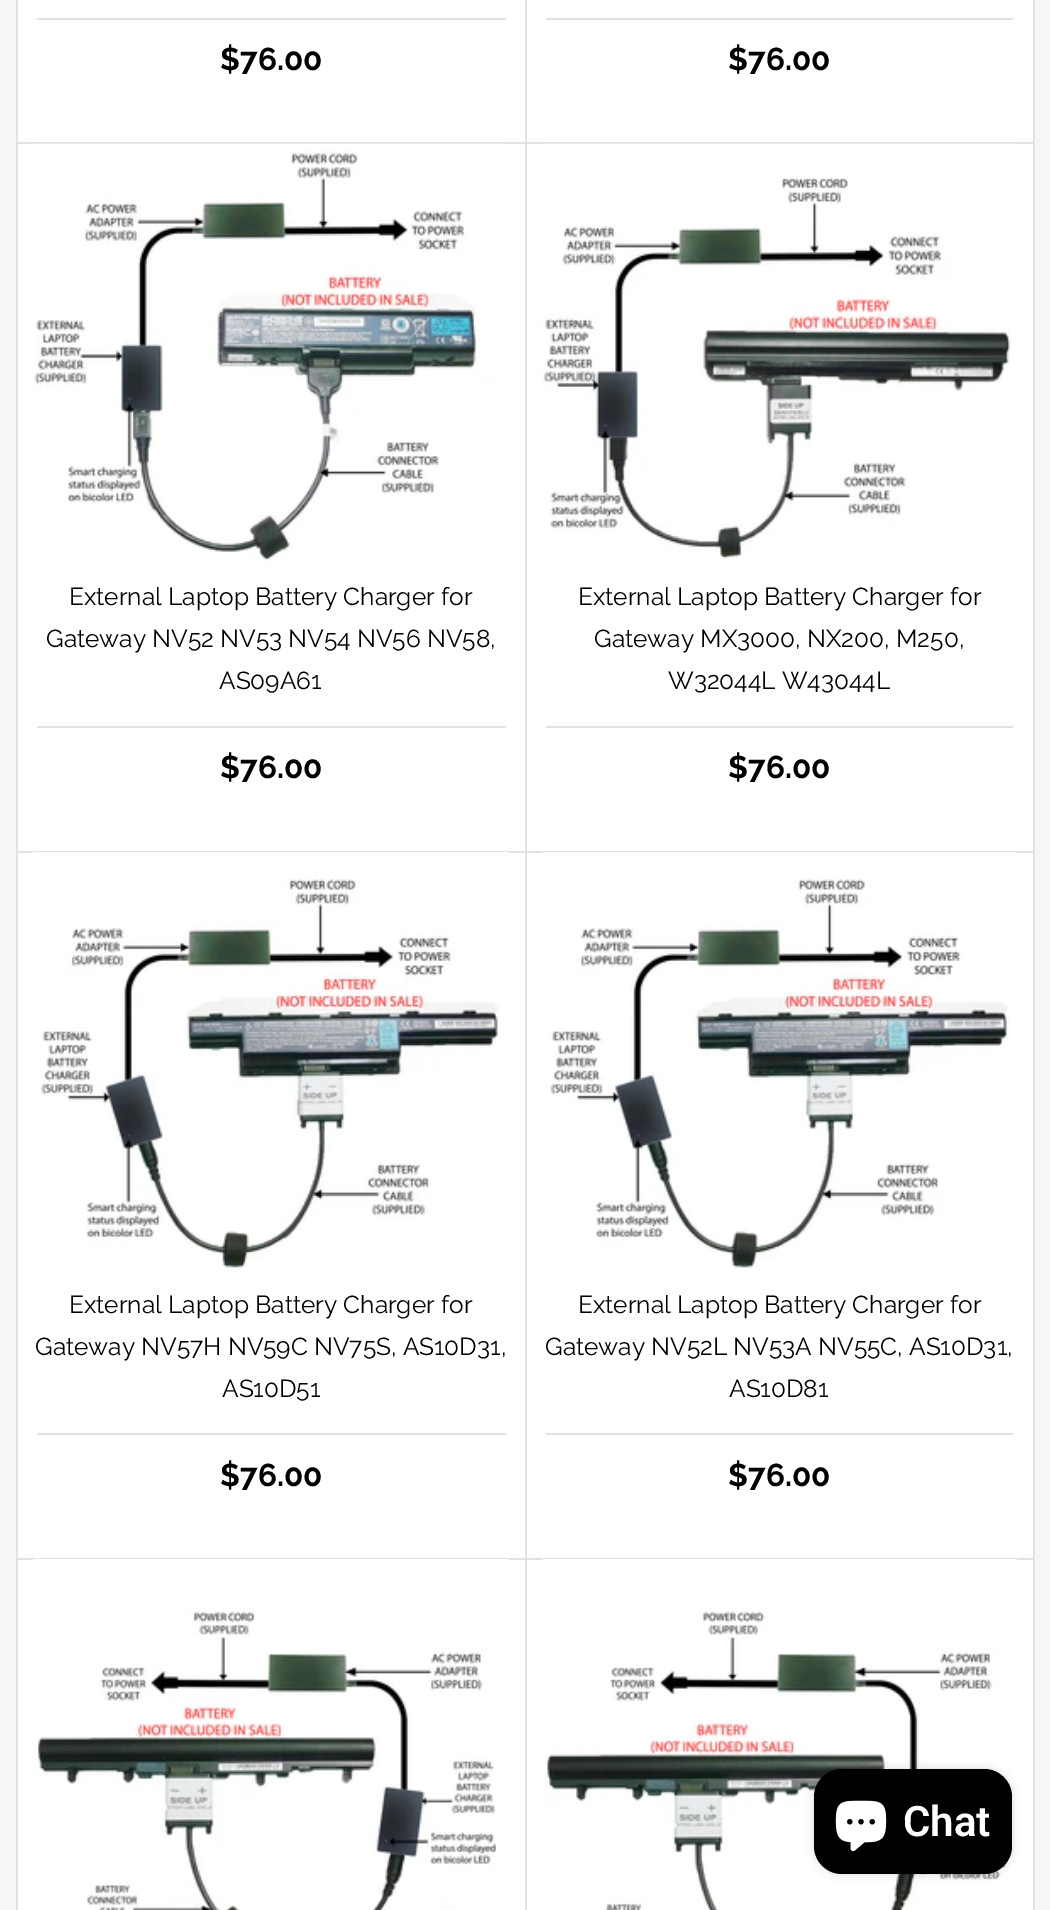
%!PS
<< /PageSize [1050 1910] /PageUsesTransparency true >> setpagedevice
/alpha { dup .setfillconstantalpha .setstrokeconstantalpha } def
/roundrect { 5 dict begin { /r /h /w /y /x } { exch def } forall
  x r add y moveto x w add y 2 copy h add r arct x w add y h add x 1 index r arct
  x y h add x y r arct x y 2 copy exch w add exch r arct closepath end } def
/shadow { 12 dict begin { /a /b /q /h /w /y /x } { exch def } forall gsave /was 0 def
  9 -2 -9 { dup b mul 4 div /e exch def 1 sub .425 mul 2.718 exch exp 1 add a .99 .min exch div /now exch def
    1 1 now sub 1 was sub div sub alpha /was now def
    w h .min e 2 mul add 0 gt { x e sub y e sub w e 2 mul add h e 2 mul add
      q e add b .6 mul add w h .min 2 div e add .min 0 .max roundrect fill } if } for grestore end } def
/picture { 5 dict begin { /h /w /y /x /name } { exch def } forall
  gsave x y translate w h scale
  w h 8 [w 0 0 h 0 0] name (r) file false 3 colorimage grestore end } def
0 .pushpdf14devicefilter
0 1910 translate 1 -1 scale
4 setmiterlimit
0.965 setgray
0 0 1050 1910 rectfill
1 setgray
18 0 1015 1910 rectfill
0.886 setgray
16 0 2 1910 rectfill
525 0 2 852 rectfill
18 142 509 2 rectfill
37 18 469 2 rectfill
/Raleway-Bold [31.5 0 0 -31.5 0 0] selectfont
0 setgray
220 70 moveto ($76.00) show
0.886 setgray
1033 0 2 852 rectfill
527 142 507 2 rectfill
546 18 467 2 rectfill
0 setgray
728 70 moveto ($76.00) show
0.886 setgray
18 851 1016 2 rectfill
(img1.rgb) 33 143 474 418 picture
/Raleway-Regular [24.5 0 0 -24.5 0 0] selectfont
0 setgray
69 605 moveto (External Laptop Battery Charger for) show
46 647 moveto (Gateway NV52 NV53 NV54 NV56 NV58,) show
219 689 moveto (AS09A61) show
0.886 setgray
37 726 469 2 rectfill
/Raleway-Bold [31.5 0 0 -31.5 0 0] selectfont
0 setgray
220 778 moveto ($76.00) show
(img2.rgb) 543 143 474 416 picture
/Raleway-Regular [24.5 0 0 -24.5 0 0] selectfont
578 605 moveto (External Laptop Battery Charger for) show
594 647 moveto (Gateway MX3000, NX200, M250,) show
668 689 moveto (W32044L W43044L) show
0.886 setgray
546 726 467 2 rectfill
/Raleway-Bold [31.5 0 0 -31.5 0 0] selectfont
0 setgray
728 778 moveto ($76.00) show
0.886 setgray
525 852 2 707 rectfill
18 1558 509 2 rectfill
1 setgray
33 852 476 1 rectfill
(img3.rgb) 41 879 460 389 picture
/Raleway-Regular [24.5 0 0 -24.5 0 0] selectfont
0 setgray
69 1313 moveto (External Laptop Battery Charger for) show
35 1355 moveto (Gateway NV57H NV59C NV75S, AS10D31,) show
222 1397 moveto (AS10D51) show
0.886 setgray
37 1433 469 2 rectfill
/Raleway-Bold [31.5 0 0 -31.5 0 0] selectfont
0 setgray
220 1486 moveto ($76.00) show
0.886 setgray
1033 852 2 707 rectfill
527 1558 507 2 rectfill
1 setgray
543 852 474 1 rectfill
(img4.rgb) 542 852 468 416 picture
/Raleway-Regular [24.5 0 0 -24.5 0 0] selectfont
0 setgray
578 1313 moveto (External Laptop Battery Charger for) show
545 1355 moveto (Gateway NV52L NV53A NV55C, AS10D31,) show
729 1397 moveto (AS10D81) show
0.886 setgray
546 1433 467 2 rectfill
/Raleway-Bold [31.5 0 0 -31.5 0 0] selectfont
0 setgray
728 1486 moveto ($76.00) show
0.886 setgray
525 1559 2 351 rectfill
1 setgray
33 1559 476 1 rectfill
(img5.rgb) 35 1607 461 303 picture
0.886 setgray
1033 1559 2 351 rectfill
1 setgray
543 1559 474 1 rectfill
(img6.rgb) 542 1559 467 351 picture
0 setgray
814 1769 198 105 28 4.5 0.15 shadow
814 1769 198 105 28 roundrect fill
(img7.rgb) 835 1800 52 52 picture
/Roboto-SemiBold [42 0 0 -42 0 0] selectfont
1 setgray
903 1836 moveto (Chat) show
.poppdf14devicefilter showpage
